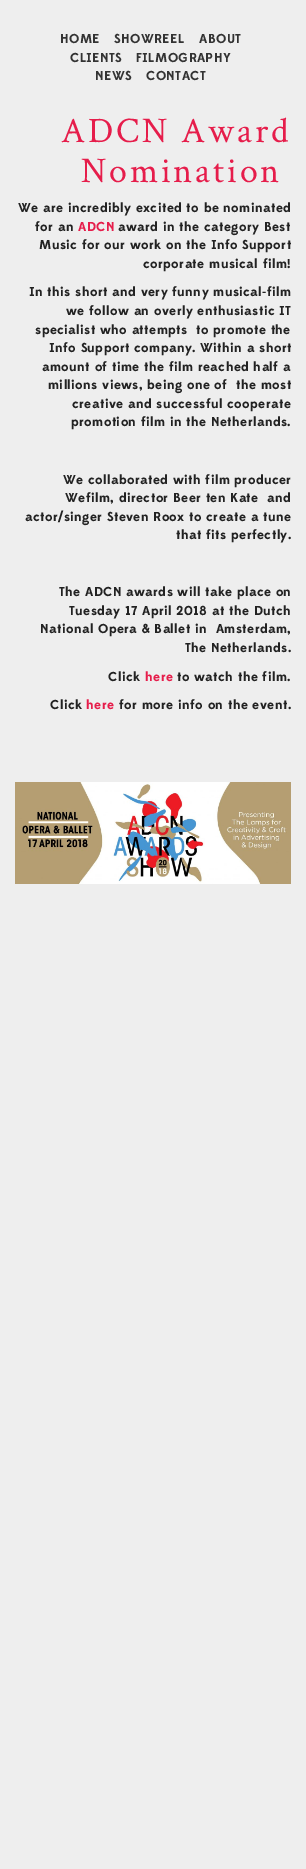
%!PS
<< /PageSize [306 1869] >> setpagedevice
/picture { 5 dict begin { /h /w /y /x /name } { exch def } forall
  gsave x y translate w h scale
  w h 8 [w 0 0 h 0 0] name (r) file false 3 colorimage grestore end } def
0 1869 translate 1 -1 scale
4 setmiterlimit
0.933 setgray
0 0 306 1869 rectfill
/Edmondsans-Bold [13 0 0 -13 0 0] selectfont
0.2 setgray
60 43 moveto 0.4 0 (HOME) ashow
114 43 moveto 0.4 0 (SHOWREEL) ashow
199 43 moveto 0.4 0 (ABOUT) ashow
70 62 moveto 0.4 0 (CLIENTS) ashow
136 62 moveto 0.4 0 (FILMOGRAPHY) ashow
95 80 moveto 0.4 0 (NEWS) ashow
146 80 moveto 0.4 0 (CONTACT) ashow
/CrimsonText-Regular [36 0 0 -36 0 0] selectfont
0.902 0.114 0.294 setrgbcolor
61 142 moveto 2.9 0 (ADCN Award) ashow
81 182 moveto 2.9 0 (Nomination) ashow
/Edmondsans-Bold [13 0 0 -13 0 0] selectfont
0.133 setgray
18 212 moveto 0.4 0 (We are incredibly excited to be nominated) ashow
35 231 moveto 0.4 0 (for an) ashow
0.902 0.114 0.294 setrgbcolor
78 231 moveto 0.4 0 (ADCN) ashow
0.133 setgray
118 231 moveto 0.4 0 (award in the category Best) ashow
39 249 moveto 0.4 0 (Music for our work on the Info Support) ashow
143 268 moveto 0.4 0 (corporate musical film!) ashow
29 296 moveto 0.4 0 (In this short and very funny musical-film) ashow
66 315 moveto 0.4 0 (we follow an overly enthusiastic IT) ashow
35 334 moveto 0.4 0 (specialist who attempts  to promote the) ashow
49 352 moveto 0.4 0 (Info Support company. Within a short) ashow
42 371 moveto 0.4 0 (amount of time the film reached half a) ashow
48 389 moveto 0.4 0 (millions views, being one of  the most) ashow
72 408 moveto 0.4 0 (creative and successful cooperate) ashow
71 426 moveto 0.4 0 (promotion film in the Netherlands.) ashow
63 484 moveto 0.4 0 (We collaborated with film producer) ashow
65 502 moveto 0.4 0 (Wefilm, director Beer ten Kate  and) ashow
25 521 moveto 0.4 0 (actor/singer Steven Roox to create a tune) ashow
176 539 moveto 0.4 0 (that fits perfectly.) ashow
59 596 moveto 0.4 0 (The ADCN awards will take place on) ashow
69 615 moveto 0.4 0 (Tuesday 17 April 2018 at the Dutch) ashow
40 633 moveto 0.4 0 (National Opera & Ballet in  Amsterdam,) ashow
185 652 moveto 0.4 0 (The Netherlands.) ashow
108 681 moveto 0.4 0 (Click) ashow
0.902 0.114 0.294 setrgbcolor
145 681 moveto 0.4 0 (here) ashow
0.133 setgray
177 681 moveto 0.4 0 (to watch the film.) ashow
50 709 moveto 0.4 0 (Click) ashow
0.902 0.114 0.294 setrgbcolor
86 709 moveto 0.4 0 (here) ashow
0.133 setgray
119 709 moveto 0.4 0 (for more info on the event.) ashow
(img1.rgb) 15 782 276 102 picture
showpage
